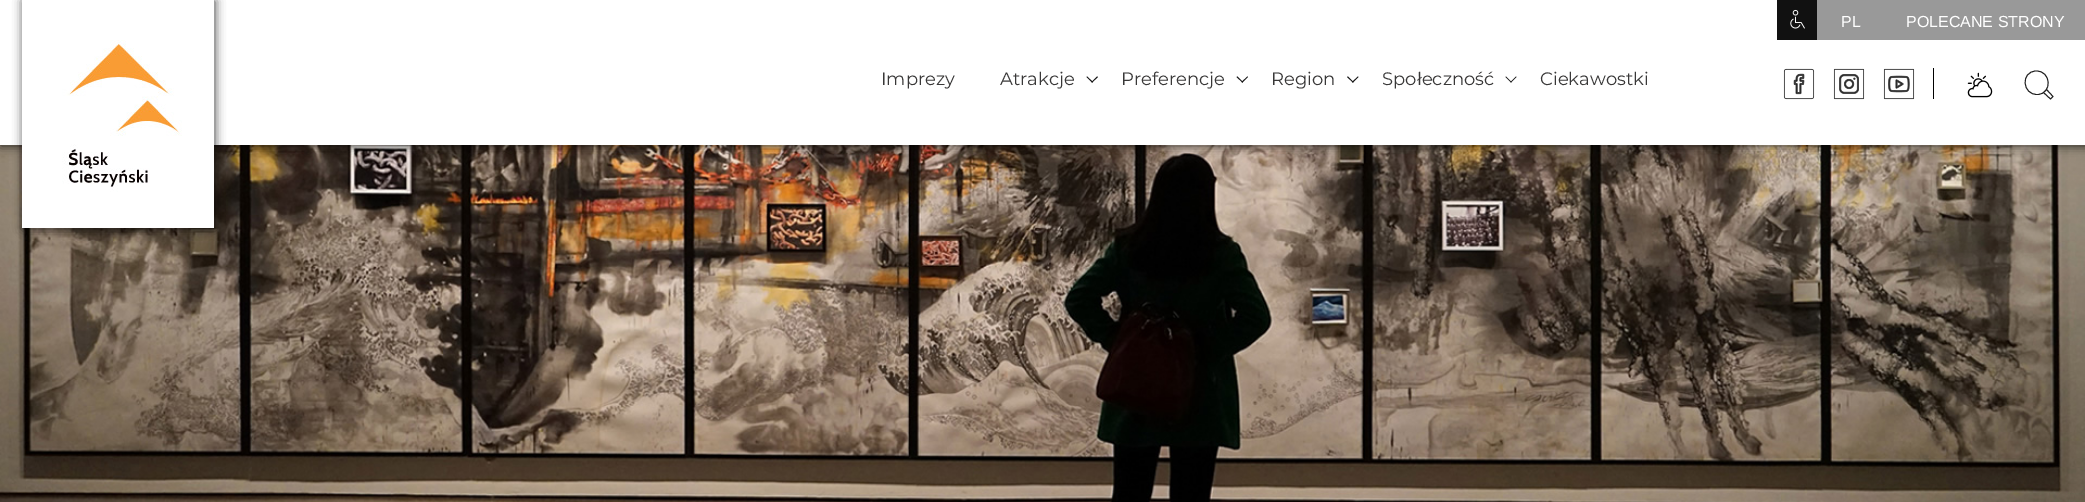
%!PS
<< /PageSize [2085 502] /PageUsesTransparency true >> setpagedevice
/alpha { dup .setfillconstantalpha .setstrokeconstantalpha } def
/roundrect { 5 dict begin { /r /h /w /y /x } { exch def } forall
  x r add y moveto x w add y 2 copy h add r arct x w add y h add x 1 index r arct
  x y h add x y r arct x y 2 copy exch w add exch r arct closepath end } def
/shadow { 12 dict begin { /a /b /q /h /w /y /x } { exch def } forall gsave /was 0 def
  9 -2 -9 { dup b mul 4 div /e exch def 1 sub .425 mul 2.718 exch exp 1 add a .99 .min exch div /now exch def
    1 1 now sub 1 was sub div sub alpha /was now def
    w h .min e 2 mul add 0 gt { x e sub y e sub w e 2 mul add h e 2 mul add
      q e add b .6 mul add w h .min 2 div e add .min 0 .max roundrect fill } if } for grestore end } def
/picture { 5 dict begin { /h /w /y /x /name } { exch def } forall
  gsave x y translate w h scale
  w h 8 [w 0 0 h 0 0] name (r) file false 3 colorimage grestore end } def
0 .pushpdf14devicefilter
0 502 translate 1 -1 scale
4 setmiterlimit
1 setgray
0 0 2085 502 rectfill
(img7.rgb) 0 145 2085 357 picture
0 setgray
1 1 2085 145 0 5 0.75 shadow
1 setgray
0 0 2085 145 rectfill
gsave
newpath 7 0 moveto 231 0 lineto 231 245 lineto 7 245 lineto closepath 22 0 moveto 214 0 lineto 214 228 lineto 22 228 lineto closepath eoclip newpath
0 setgray
23 1 192 228 0 5 0.75 shadow
grestore
(img1.rgb) 22 40 192 188 picture
0.067 setgray
1777 0 40 40 rectfill
(img2.rgb) 1790 9 15 20 picture
0.6 setgray
1817 0 268 40 rectfill
/LiberationSans-Regular [16 0 0 -16 0 0] selectfont
1 setgray
1841 27 moveto (PL) show
1906 27 moveto (POLECANE STRONY) show
(img3.rgb) 1783 68 32 32 picture
(img4.rgb) 1833 68 32 32 picture
(img5.rgb) 1883 68 32 32 picture
0 setgray
1933 68 1 31 rectfill
(img6.rgb) 1967 72 26 26 picture
0.122 setgray
0.9 setlinewidth
1 setlinecap
1 setlinejoin
newpath 2037.5 94.5 moveto 2022 95 2020.5 71.5 2036 71 curveto 2051.5 70.5 2052.5 94 2037.5 94.5 curveto closepath 2043.5 92.5 moveto 2046.5 89.5 lineto 2053 96.5 lineto 2050.5 99 lineto closepath stroke
/Montserrat-Thin [18 0 0 -18 0 0] selectfont
0.224 0.22 0.22 setrgbcolor
881 85 moveto (Imprezy) show
1000 85 moveto (Atrakcje) show
0.067 setgray
newpath 1091.5 82 moveto 1097 76.5 lineto 1098 77 lineto 1092 82.5 lineto closepath fill
newpath 1086.5 77 moveto 1087 76.5 lineto 1093 82 lineto 1092 82.5 lineto closepath fill
0.224 0.22 0.22 setrgbcolor
1121 85 moveto (Preferencje) show
0.067 setgray
newpath 1241.5 82 moveto 1247.5 76.5 lineto 1248 77 lineto 1242.5 82.5 lineto closepath fill
newpath 1236.5 77 moveto 1237.5 76.5 lineto 1243 82 lineto 1242.5 82.5 lineto closepath fill
0.224 0.22 0.22 setrgbcolor
1271 85 moveto (Region) show
0.067 setgray
newpath 1352 82 moveto 1358 76.5 lineto 1358.5 77 lineto 1353 82.5 lineto closepath fill
newpath 1347 77 moveto 1348 76.5 lineto 1353.5 82 lineto 1353 82.5 lineto closepath fill
0.224 0.22 0.22 setrgbcolor
1382 85 moveto (Społeczność) show
0.067 setgray
newpath 1510.5 82 moveto 1516 76.5 lineto 1516.5 77 lineto 1511 82.5 lineto closepath fill
newpath 1505.5 77 moveto 1506 76.5 lineto 1511.5 82 lineto 1511 82.5 lineto closepath fill
0.224 0.22 0.22 setrgbcolor
1540 85 moveto (Ciekawostki) show
.poppdf14devicefilter showpage
